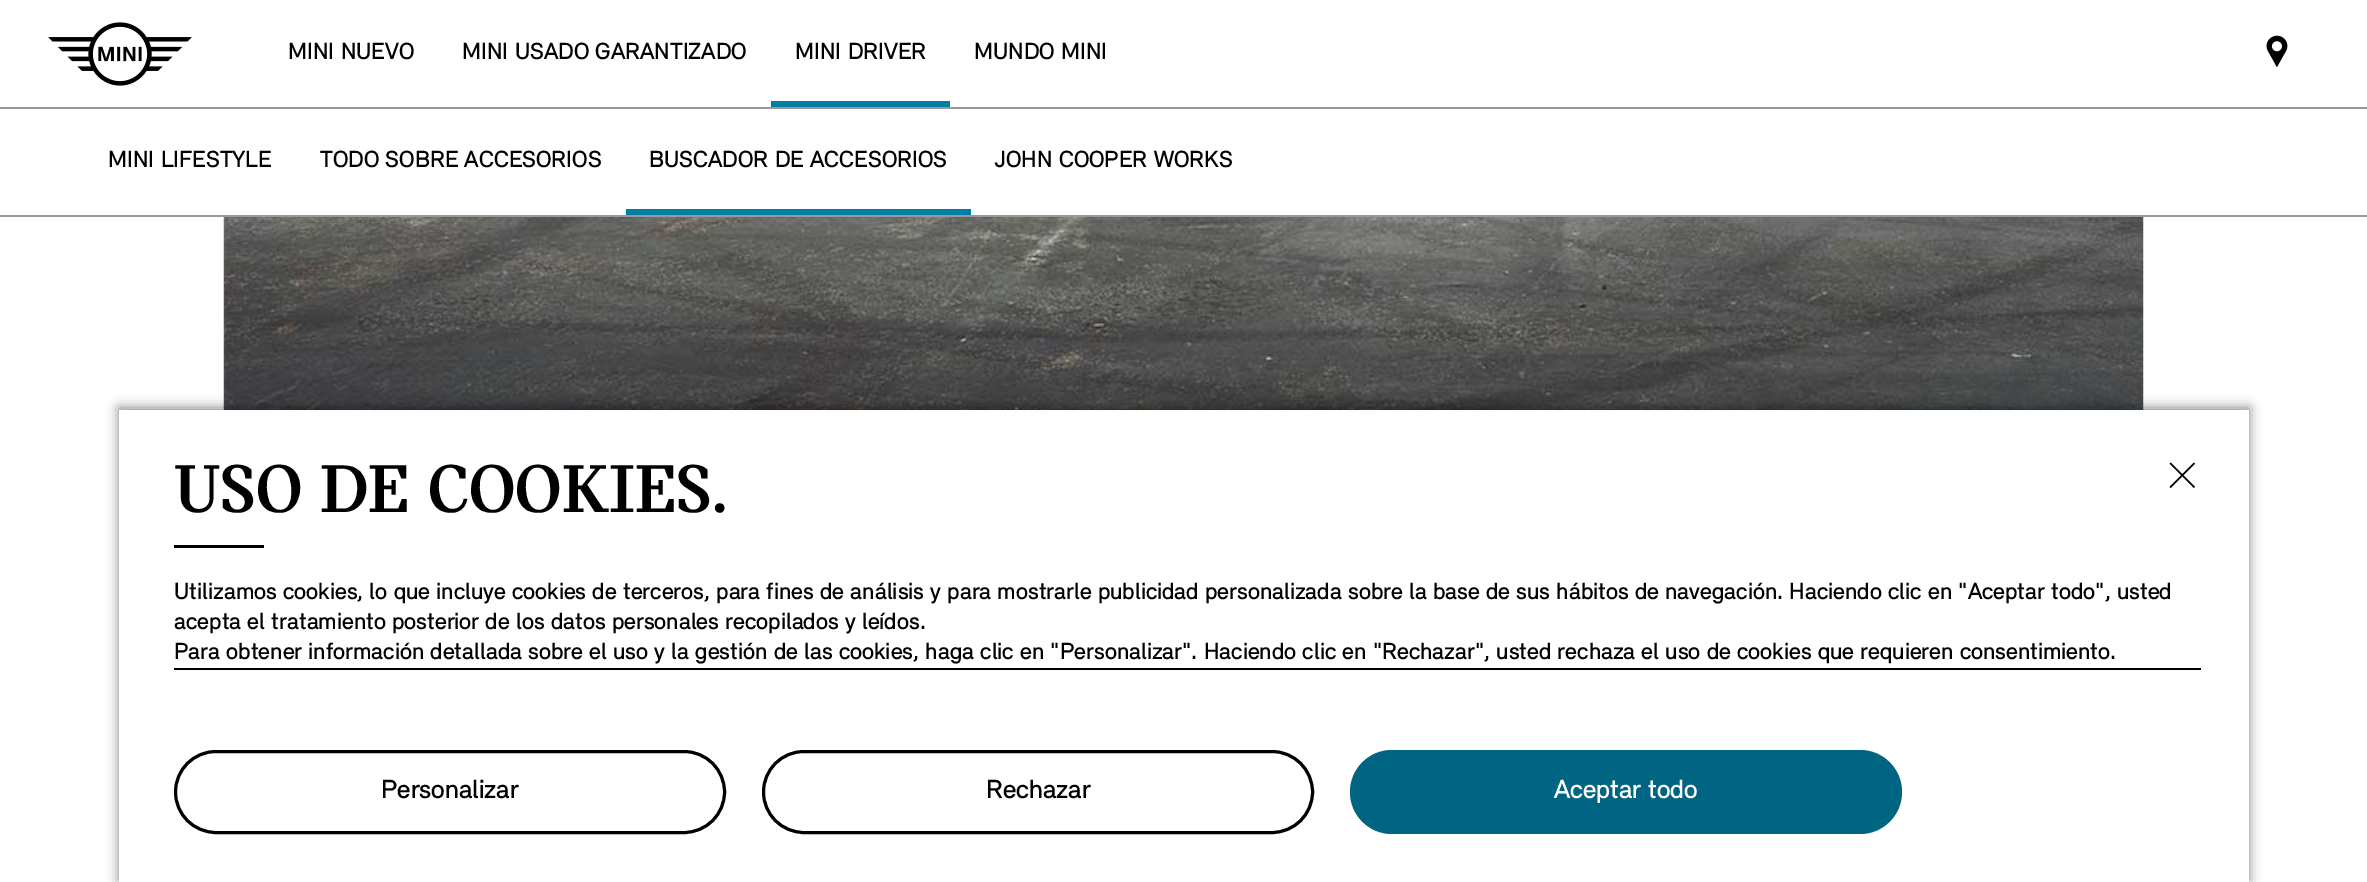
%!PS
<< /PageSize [2367 882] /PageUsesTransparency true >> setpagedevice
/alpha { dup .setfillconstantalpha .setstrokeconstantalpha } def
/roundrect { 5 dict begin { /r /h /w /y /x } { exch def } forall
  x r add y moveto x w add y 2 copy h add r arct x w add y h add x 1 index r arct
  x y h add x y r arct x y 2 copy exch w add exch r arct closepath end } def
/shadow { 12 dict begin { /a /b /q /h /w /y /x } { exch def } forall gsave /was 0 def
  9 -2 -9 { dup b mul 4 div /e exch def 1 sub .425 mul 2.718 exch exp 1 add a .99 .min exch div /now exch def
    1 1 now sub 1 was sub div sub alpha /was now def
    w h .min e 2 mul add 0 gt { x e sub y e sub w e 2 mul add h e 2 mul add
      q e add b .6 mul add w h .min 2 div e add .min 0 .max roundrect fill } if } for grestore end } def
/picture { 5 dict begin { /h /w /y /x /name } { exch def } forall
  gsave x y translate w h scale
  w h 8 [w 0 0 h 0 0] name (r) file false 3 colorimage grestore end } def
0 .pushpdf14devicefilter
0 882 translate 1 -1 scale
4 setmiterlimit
1 setgray
0 0 2367 882 rectfill
0.6 setgray
0 107 2367 2 rectfill
(img1.rgb) 48 22 144 64 picture
/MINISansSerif-Regular [24 0 0 -24 0 0] selectfont
0 setgray
288 59 moveto (MINI NUEVO) show
462 59 moveto (MINI USADO GARANTIZADO) show
0.004 0.494 0.643 setrgbcolor
771 101 179 6 rectfill
0 setgray
795 59 moveto (MINI DRIVER) show
974 59 moveto (MUNDO MINI) show
(img2.rgb) 2266 35 22 33 picture
0.6 setgray
0 215 2367 2 rectfill
0 setgray
108 167 moveto (MINI LIFESTYLE) show
320 167 moveto (TODO SOBRE ACCESORIOS) show
0.004 0.494 0.643 setrgbcolor
626 209 345 6 rectfill
0 setgray
649 167 moveto (BUSCADOR DE ACCESORIOS) show
995 167 moveto (JOHN COOPER WORKS) show
(img3.rgb) 223 217 1921 193 picture
119 408 2130 473 0 6 0.5 shadow
1 setgray
119 410 2130 472 rectfill
/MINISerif-Bold [72 0 0 -72 0 0] selectfont
0 setgray
174 512 moveto (USO DE COOKIES.) show
174 545 90 3 rectfill
(img4.rgb) 2169 462 27 27 picture
/MINISansSerif-Regular [24 0 0 -24 0 0] selectfont
174 599 moveto (Utilizamos cookies, lo que incluye cookies de terceros, para fines de análisis y para mostrarle publicidad personalizada sobre la base de sus hábitos de navegación. Haciendo clic en "Aceptar todo", usted) show
174 629 moveto (acepta el tratamiento posterior de los datos personales recopilados y leídos.) show
174 659 moveto (Para obtener información detallada sobre el uso y la gestión de las cookies, haga clic en "Personalizar". Haciendo clic en "Rechazar", usted rechaza el uso de cookies que requieren consentimiento.) show
174 668 2027 2 rectfill
3 setlinewidth
175.5 751.5 549 81 40.5 roundrect stroke
/MINISansSerif-Regular [27 0 0 -27 0 0] selectfont
381 798 moveto (Personalizar) show
763.5 751.5 549 81 40.5 roundrect stroke
986 798 moveto (Rechazar) show
0 0.396 0.514 setrgbcolor
1350 750 552 84 42 roundrect fill
1 setgray
1554 798 moveto (Aceptar todo) show
.poppdf14devicefilter showpage
